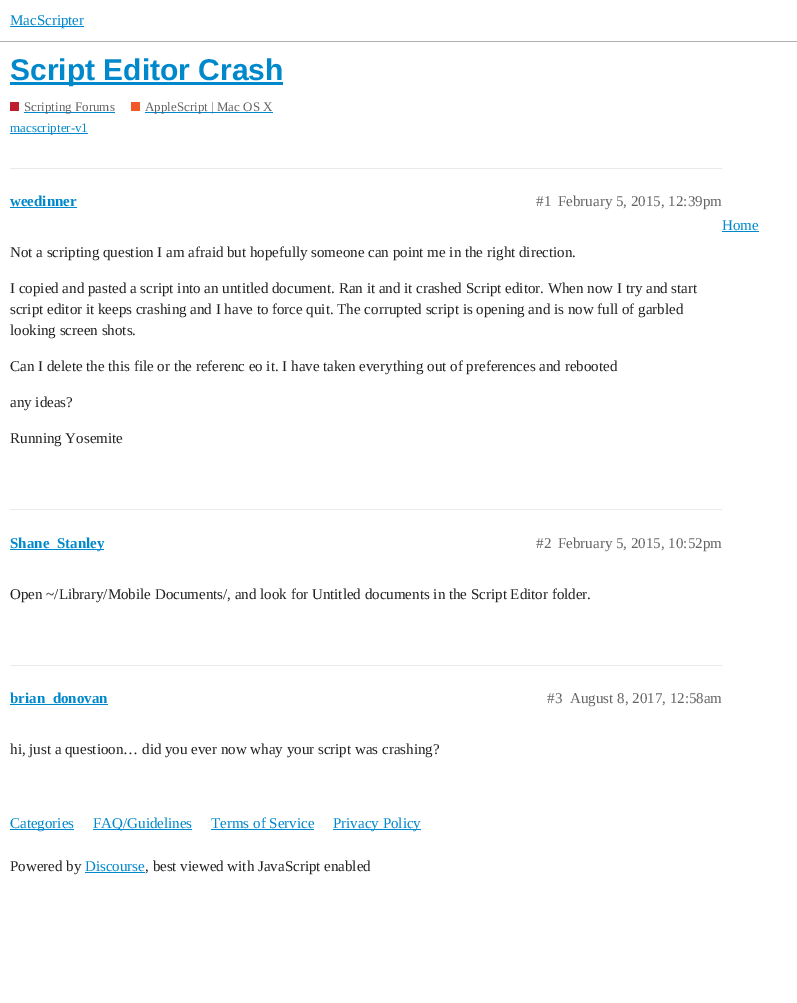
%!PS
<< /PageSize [797 1003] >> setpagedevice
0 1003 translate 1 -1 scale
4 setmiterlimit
1 setgray
0 0 797 1003 rectfill
0.686 setgray
0 41 797 1 rectfill
0 0.533 0.8 setrgbcolor
10 26 74 1 rectfill
/LiberationSerif-Regular [15 0 0 -15 0 0] selectfont
10 25 moveto (MacScripter) show
10 82 273 3 rectfill
/LiberationSans-Bold [30 0 0 -30 0 0] selectfont
10 80 moveto (Script Editor Crash) show
0.749 0.118 0.18 setrgbcolor
10 102 9 9 rectfill
0 0.533 0.8 setrgbcolor
24 112 91 1 rectfill
/LiberationSerif-Regular [13 0 0 -13 0 0] selectfont
0.392 setgray
24 111 moveto (Scripting Forums) show
0.945 0.349 0.165 setrgbcolor
131 102 9 9 rectfill
0 0.533 0.8 setrgbcolor
145 112 128 1 rectfill
0.392 setgray
145 111 moveto (AppleScript | Mac OS X) show
0 0.533 0.8 setrgbcolor
10 133 78 1 rectfill
10 132 moveto (macscripter-v1) show
0.914 setgray
10 168 712 1 rectfill
/LiberationSerif-Bold [15 0 0 -15 0 0] selectfont
0 0.533 0.8 setrgbcolor
10 206 moveto (weedinner) show
10 207 67 1 rectfill
/LiberationSerif-Regular [15 0 0 -15 0 0] selectfont
0.392 setgray
536 206 moveto (#1) show
558 206 moveto (February 5, 2015, 12:39pm) show
0.133 setgray
10 257 moveto (Not a scripting question I am afraid but hopefully someone can point me in the right direction.) show
10 293 moveto (I copied and pasted a script into an untitled document. Ran it and it crashed Script editor. When now I try and start) show
10 314 moveto (script editor it keeps crashing and I have to force quit. The corrupted script is opening and is now full of garbled) show
10 335 moveto (looking screen shots.) show
10 371 moveto (Can I delete the this file or the referenc eo it. I have taken everything out of preferences and rebooted) show
10 407 moveto (any ideas?) show
10 443 moveto (Running Yosemite) show
0.914 setgray
10 509 712 1 rectfill
0 0.533 0.8 setrgbcolor
10 549 94 1 rectfill
/LiberationSerif-Bold [15 0 0 -15 0 0] selectfont
10 548 moveto (Shane_Stanley) show
/LiberationSerif-Regular [15 0 0 -15 0 0] selectfont
0.392 setgray
536 548 moveto (#2) show
558 548 moveto (February 5, 2015, 10:52pm) show
0.133 setgray
10 599 moveto (Open ~/Library/Mobile Documents/, and look for Untitled documents in the Script Editor folder.) show
0.914 setgray
10 665 712 1 rectfill
0 0.533 0.8 setrgbcolor
10 704 98 1 rectfill
/LiberationSerif-Bold [15 0 0 -15 0 0] selectfont
10 703 moveto (brian_donovan) show
/LiberationSerif-Regular [15 0 0 -15 0 0] selectfont
0.392 setgray
547 703 moveto (#3) show
570 703 moveto (August 8, 2017, 12:58am) show
0.133 setgray
10 754 moveto (hi, just a questioon… did you ever now whay your script was crashing?) show
0 0.533 0.8 setrgbcolor
722 230 moveto (Home) show
722 231 37 1 rectfill
10 829 64 1 rectfill
10 828 moveto (Categories) show
93 829 99 1 rectfill
93 828 moveto (FAQ/Guidelines) show
211 828 moveto (Terms of Service) show
211 829 103 1 rectfill
333 829 88 1 rectfill
333 828 moveto (Privacy Policy) show
0.133 setgray
10 871 moveto (Powered by) show
0 0.533 0.8 setrgbcolor
85 871 moveto (Discourse) show
85 872 60 1 rectfill
0.133 setgray
145 871 moveto (, best viewed with JavaScript enabled) show
showpage
